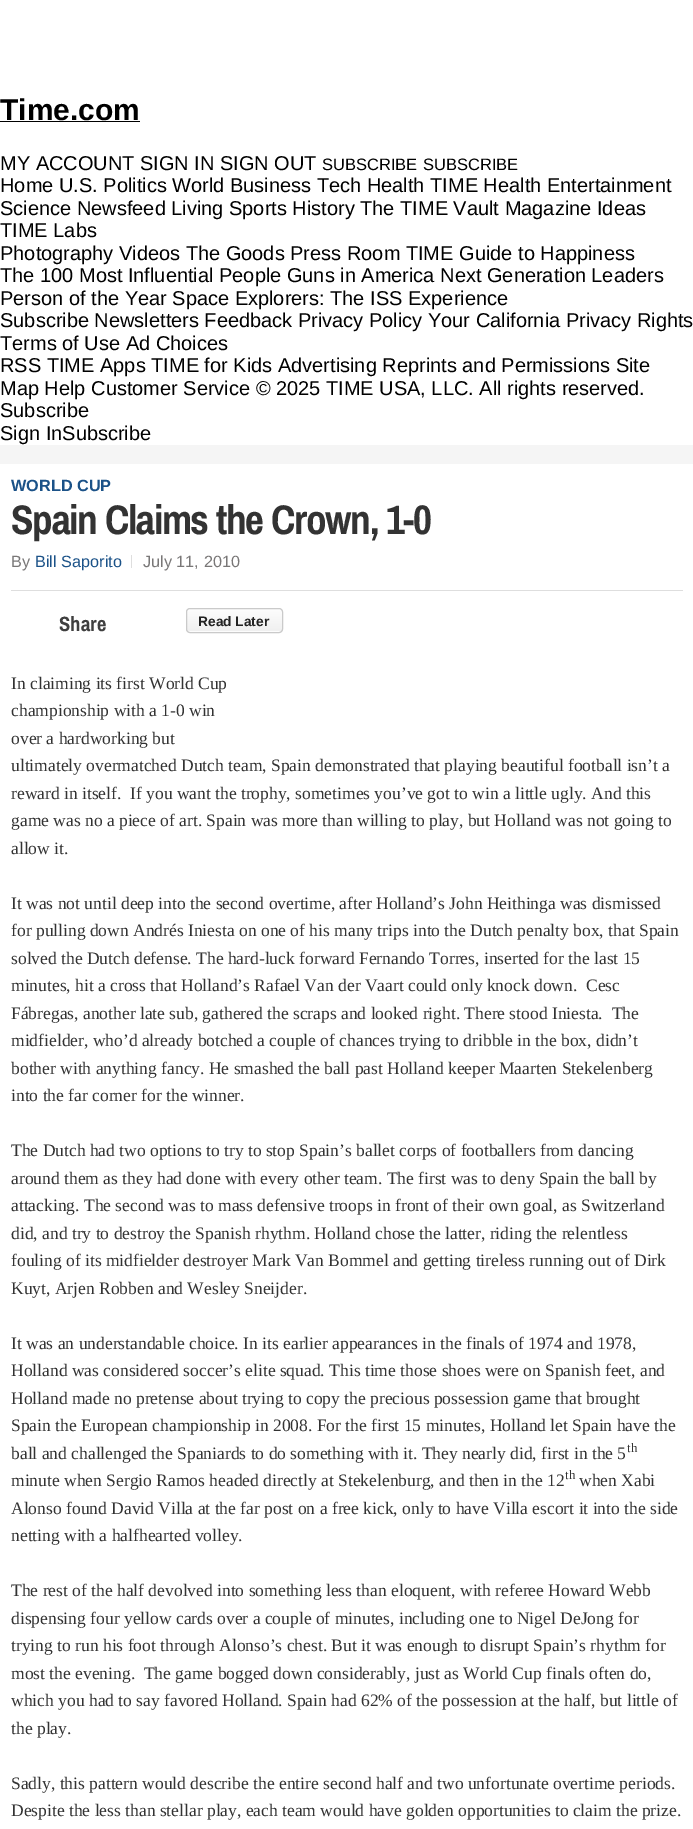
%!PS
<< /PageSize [693 1829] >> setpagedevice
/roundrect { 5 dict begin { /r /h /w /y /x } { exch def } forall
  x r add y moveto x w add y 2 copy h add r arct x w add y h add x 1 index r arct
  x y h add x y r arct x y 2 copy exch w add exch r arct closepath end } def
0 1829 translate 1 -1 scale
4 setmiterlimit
1 setgray
0 0 693 1829 rectfill
/LiberationSans-Bold [30 0 0 -30 0 0] selectfont
0 setgray
0 120 moveto (Time.com) show
0 121 140 1 rectfill
/LiberationSans-Regular [20 0 0 -20 0 0] selectfont
0 170 moveto (MY ACCOUNT SIGN IN SIGN OUT) show
/LiberationSans-Regular [16.5 0 0 -16.5 0 0] selectfont
322 170 moveto (SUBSCRIBE) show
423 170 moveto (SUBSCRIBE) show
/LiberationSans-Regular [20 0 0 -20 0 0] selectfont
0 192 moveto (Home U.S. Politics World Business Tech Health TIME Health Entertainment) show
0 215 moveto (Science Newsfeed Living Sports History The TIME Vault Magazine Ideas) show
0 237 moveto (TIME Labs) show
0 260 moveto (Photography Videos The Goods Press Room TIME Guide to Happiness) show
0 282 moveto (The 100 Most Influential People Guns in America Next Generation Leaders) show
0 305 moveto (Person of the Year Space Explorers: The ISS Experience) show
0 327 moveto (Subscribe Newsletters Feedback Privacy Policy Your California Privacy Rights) show
0 350 moveto (Terms of Use Ad Choices) show
0 372 moveto (RSS TIME Apps TIME for Kids Advertising Reprints and Permissions Site) show
0 395 moveto (Map Help Customer Service © 2025 TIME USA, LLC. All rights reserved.) show
0 417 moveto (Subscribe) show
0 440 moveto (Sign InSubscribe) show
0.961 setgray
0 445 693 19 rectfill
/LiberationSans-Bold [16.25 0 0 -16.25 0 0] selectfont
0.106 0.322 0.533 setrgbcolor
11 491 moveto (WORLD CUP) show
/PragatiNarrow-Bold [45 0 0 -45 0 0] selectfont
0.2 setgray
11 534 moveto -1.35 0 (Spain Claims the Crown, 1-0) ashow
/LiberationSans-Regular [16.25 0 0 -16.25 0 0] selectfont
0.475 0.467 0.467 setrgbcolor
11 567 moveto (By) show
0.106 0.322 0.533 setrgbcolor
35 567 moveto (Bill Saporito) show
0.871 setgray
131 555 1 13 rectfill
0.475 0.467 0.467 setrgbcolor
143 567 moveto (July 11, 2010) show
0.871 setgray
11 590 672 1 rectfill
/PragatiNarrow-Bold [22.5 0 0 -22.5 0 0] selectfont
0.247 setgray
59 631 moveto (Share) show
gsave
186 608 97 25 4 roundrect clip newpath
gsave newpath 186 609 moveto 283 609 lineto 283 631 lineto 186 631 lineto closepath clip newpath
<< /ShadingType 2 /ColorSpace /DeviceRGB /Coords [234 609 234 631] /Extend [true true] /Function << /FunctionType 2 /Domain [0 1] /C0 [0.992 0.992 0.992] /C1 [0.941 0.941 0.941] /N 1 >> >> shfill grestore
gsave newpath 186 631 moveto 283 631 lineto 283 633 lineto 186 633 lineto closepath clip newpath
<< /ShadingType 2 /ColorSpace /DeviceRGB /Coords [234 631 234 654] /Extend [true true] /Function << /FunctionType 2 /Domain [0 1] /C0 [0.992 0.992 0.992] /C1 [0.941 0.941 0.941] /N 1 >> >> shfill grestore
grestore
0.792 setgray
186.5 608.5 96 24 3.5 roundrect stroke
/LiberationSans-Bold [13.75 0 0 -13.75 0 0] selectfont
0.137 setgray
198 626 moveto (Read Later) show
/LiberationSerif-Regular [17.5 0 0 -17.5 0 0] selectfont
0.2 setgray
11 689 moveto (In claiming its first World Cup) show
11 716 moveto (championship with a 1-0 win) show
11 744 moveto (over a hardworking but) show
11 771 moveto (ultimately overmatched Dutch team, Spain demonstrated that playing beautiful football isn’t a) show
11 799 moveto (reward in itself.  If you want the trophy, sometimes you’ve got to win a little ugly. And this) show
11 826 moveto (game was no a piece of art. Spain was more than willing to play, but Holland was not going to) show
11 854 moveto (allow it.) show
11 909 moveto (It was not until deep into the second overtime, after Holland’s John Heithinga was dismissed) show
11 936 moveto (for pulling down Andrés Iniesta on one of his many trips into the Dutch penalty box, that Spain) show
11 964 moveto (solved the Dutch defense. The hard-luck forward Fernando Torres, inserted for the last 15) show
11 991 moveto (minutes, hit a cross that Holland’s Rafael Van der Vaart could only knock down.  Cesc) show
11 1019 moveto (Fábregas, another late sub, gathered the scraps and looked right. There stood Iniesta.  The) show
11 1046 moveto (midfielder, who’d already botched a couple of chances trying to dribble in the box, didn’t) show
11 1074 moveto (bother with anything fancy. He smashed the ball past Holland keeper Maarten Stekelenberg) show
11 1101 moveto (into the far corner for the winner.) show
11 1156 moveto (The Dutch had two options to try to stop Spain’s ballet corps of footballers from dancing) show
11 1184 moveto (around them as they had done with every other team. The first was to deny Spain the ball by) show
11 1211 moveto (attacking. The second was to mass defensive troops in front of their own goal, as Switzerland) show
11 1239 moveto (did, and try to destroy the Spanish rhythm. Holland chose the latter, riding the relentless) show
11 1266 moveto (fouling of its midfielder destroyer Mark Van Bommel and getting tireless running out of Dirk) show
11 1294 moveto (Kuyt, Arjen Robben and Wesley Sneijder.) show
11 1349 moveto (It was an understandable choice. In its earlier appearances in the finals of 1974 and 1978,) show
11 1376 moveto (Holland was considered soccer’s elite squad. This time those shoes were on Spanish feet, and) show
11 1404 moveto (Holland made no pretense about trying to copy the precious possession game that brought) show
11 1431 moveto (Spain the European championship in 2008. For the first 15 minutes, Holland let Spain have the) show
11 1459 moveto (ball and challenged the Spaniards to do something with it. They nearly did, first in the 5) show
/LiberationSerif-Regular [13 0 0 -13 0 0] selectfont
627 1452 moveto (th) show
/LiberationSerif-Regular [17.5 0 0 -17.5 0 0] selectfont
11 1486 moveto (minute when Sergio Ramos headed directly at Stekelenburg, and then in the 12) show
/LiberationSerif-Regular [13 0 0 -13 0 0] selectfont
565 1479 moveto (th) show
/LiberationSerif-Regular [17.5 0 0 -17.5 0 0] selectfont
579 1486 moveto (when Xabi) show
11 1514 moveto (Alonso found David Villa at the far post on a free kick, only to have Villa escort it into the side) show
11 1541 moveto (netting with a halfhearted volley.) show
11 1596 moveto (The rest of the half devolved into something less than eloquent, with referee Howard Webb) show
11 1624 moveto (dispensing four yellow cards over a couple of minutes, including one to Nigel DeJong for) show
11 1651 moveto (trying to run his foot through Alonso’s chest. But it was enough to disrupt Spain’s rhythm for) show
11 1679 moveto (most the evening.  The game bogged down considerably, just as World Cup finals often do,) show
11 1706 moveto (which you had to say favored Holland. Spain had 62% of the possession at the half, but little of) show
11 1734 moveto (the play.) show
11 1789 moveto (Sadly, this pattern would describe the entire second half and two unfortunate overtime periods.) show
11 1816 moveto (Despite the less than stellar play, each team would have golden opportunities to claim the prize.) show
showpage
